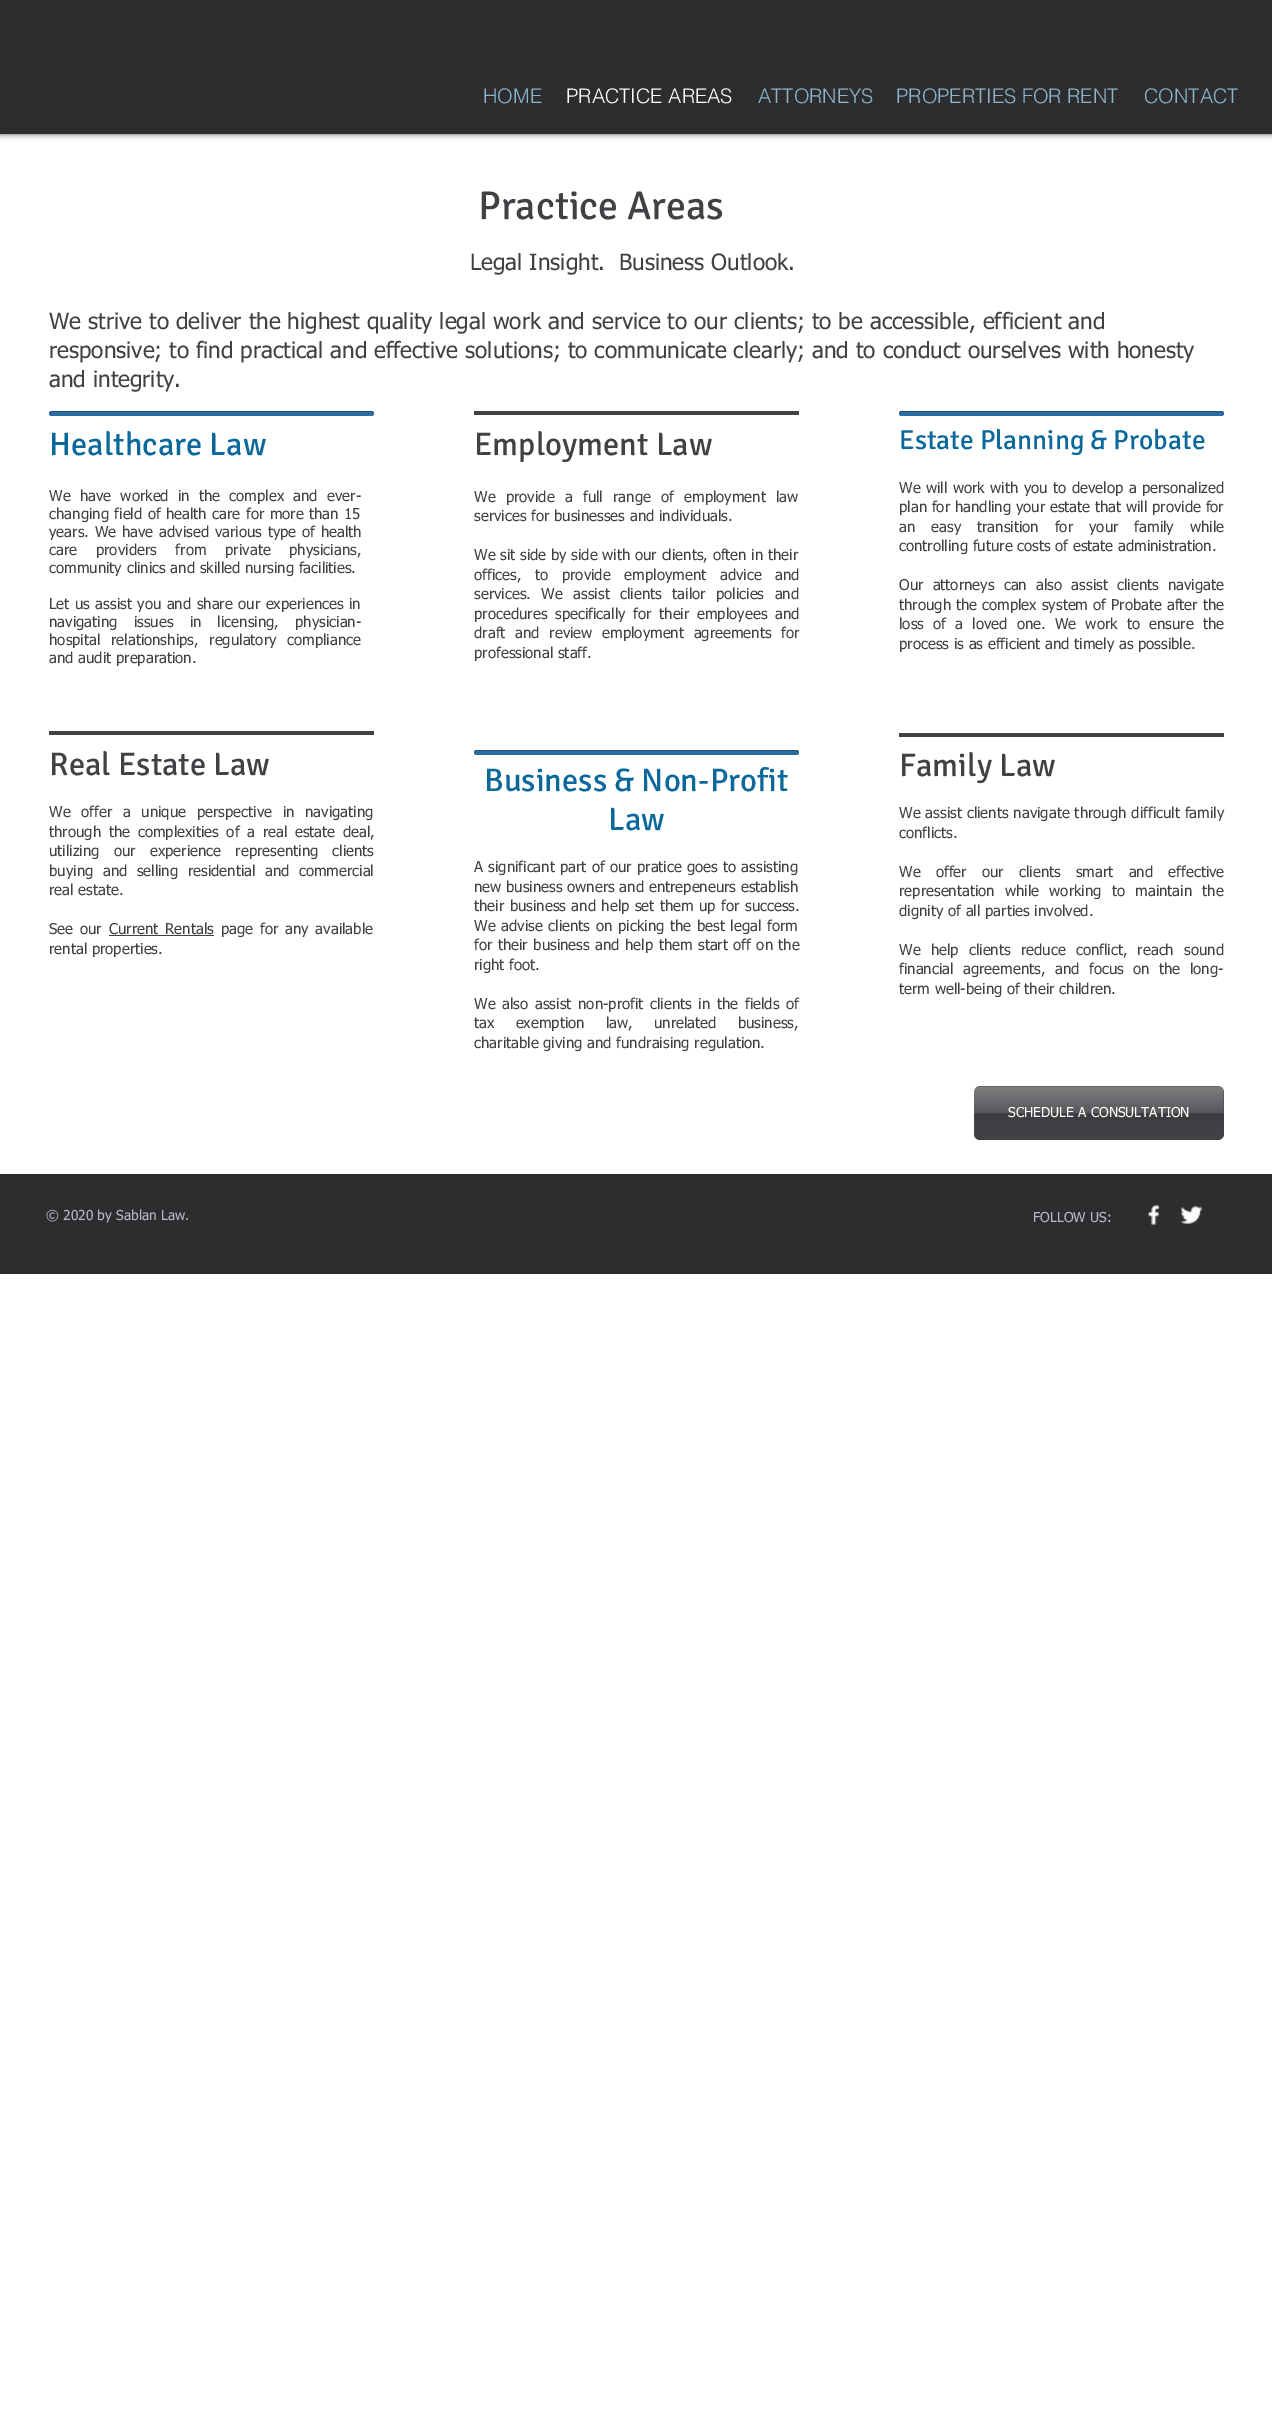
%!PS
<< /PageSize [1272 2420] /PageUsesTransparency true >> setpagedevice
/alpha { dup .setfillconstantalpha .setstrokeconstantalpha } def
/roundrect { 5 dict begin { /r /h /w /y /x } { exch def } forall
  x r add y moveto x w add y 2 copy h add r arct x w add y h add x 1 index r arct
  x y h add x y r arct x y 2 copy exch w add exch r arct closepath end } def
/shadow { 12 dict begin { /a /b /q /h /w /y /x } { exch def } forall gsave /was 0 def
  9 -2 -9 { dup b mul 4 div /e exch def 1 sub .425 mul 2.718 exch exp 1 add a .99 .min exch div /now exch def
    1 1 now sub 1 was sub div sub alpha /was now def
    w h .min e 2 mul add 0 gt { x e sub y e sub w e 2 mul add h e 2 mul add
      q e add b .6 mul add w h .min 2 div e add .min 0 .max roundrect fill } if } for grestore end } def
/picture { 5 dict begin { /h /w /y /x /name } { exch def } forall
  gsave x y translate w h scale
  w h 8 [w 0 0 h 0 0] name (r) file false 3 colorimage grestore end } def
0 .pushpdf14devicefilter
0 2420 translate 1 -1 scale
4 setmiterlimit
1 setgray
0 0 1272 2420 rectfill
0 setgray
0 0 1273 134 0 3 0.7 shadow
0.176 0.176 0.184 setrgbcolor
0 0 1272 134 rectfill
/helvetica-Light [20 0 0 -20 0 0] selectfont
0.553 0.714 0.8 setrgbcolor
483 103 moveto (HOME) show
1 setgray
566 103 moveto (PRACTICE AREAS) show
0.553 0.714 0.8 setrgbcolor
758 103 moveto (ATTORNEYS) show
896 103 moveto (PROPERTIES FOR RENT) show
1144 103 moveto (CONTACT) show
/Signika-Regular [40 0 0 -40 0 0] selectfont
0.251 0.255 0.267 setrgbcolor
478 219 moveto (Practice Areas) show
/tahoma-Regular [22.5 0 0 -22.5 0 0] selectfont
470 270 moveto (Legal Insight.  Business Outlook.) show
49 329 moveto (We strive to deliver the highest quality legal work and service to our clients; to be accessible, efficient and) show
49 358 moveto (responsive; to find practical and effective solutions; to communicate clearly; and to conduct ourselves with honesty) show
49 387 moveto (and integrity.) show
0.169 0.424 0.639 setrgbcolor
49 411 325 5 2.5 roundrect fill
0.25 alpha
0 setgray
newpath 51 412 moveto 371 412 lineto 373 412 374 413 374 414 curveto 374 413 373 411 372 411 curveto 52 411 lineto 50 411 49 413 49 414 curveto 49 413 50 412 51 412 curveto closepath fill
1 alpha
0.251 0.255 0.267 setrgbcolor
474 411 325 4 rectfill
0.169 0.424 0.639 setrgbcolor
899 411 325 5 2.5 roundrect fill
0.25 alpha
0 setgray
newpath 901 412 moveto 1221 412 lineto 1223 412 1224 413 1224 414 curveto 1224 413 1223 411 1222 411 curveto 901 411 lineto 900 411 899 413 899 414 curveto 899 413 900 412 901 412 curveto closepath fill
/Signika-Regular [32.5 0 0 -32.5 0 0] selectfont
1 alpha
0.043 0.408 0.604 setrgbcolor
49 455 moveto (Healthcare Law) show
/tahoma-Regular [15 0 0 -15 0 0] selectfont
0.251 0.255 0.267 setrgbcolor
49 501 moveto 4.5 0 32 (We have worked in the complex and ever-) widthshow
49 519 moveto 0.75 0 32 (changing field of health care for more than 15) widthshow
49 537 moveto 1 0 32 (years. We have advised various type of health) widthshow
49 555 moveto 14 0 32 (care providers from private physicians,) widthshow
49 573 moveto (community clinics and skilled nursing facilities.) show
49 609 moveto 0.75 0 32 (Let us assist you and share our experiences in) widthshow
49 627 moveto 11.5 0 32 (navigating issues in licensing, physician-) widthshow
49 645 moveto 6 0 32 (hospital relationships, regulatory compliance) widthshow
49 663 moveto (and audit preparation.) show
/Signika-Regular [32.5 0 0 -32.5 0 0] selectfont
474 455 moveto (Employment Law) show
/tahoma-Regular [15 0 0 -15 0 0] selectfont
474 502 moveto 5.5 0 32 (We provide a full range of employment law) widthshow
474 521 moveto (services for businesses and individuals.) show
474 560 moveto (We sit side by side with our clients, often in their) show
474 580 moveto 9 0 32 (offices, to provide employment advice and) widthshow
474 599 moveto 5.75 0 32 (services. We assist clients tailor policies and) widthshow
474 619 moveto 3 0 32 (procedures specifically for their employees and) widthshow
474 638 moveto 5 0 32 (draft and review employment agreements for) widthshow
474 658 moveto (professional staff.) show
/Signika-Regular [27.5 0 0 -27.5 0 0] selectfont
0.043 0.408 0.604 setrgbcolor
899 449 moveto (Estate Planning & Probate) show
/tahoma-Regular [15 0 0 -15 0 0] selectfont
0.251 0.255 0.267 setrgbcolor
899 493 moveto 0.75 0 32 (We will work with you to develop a personalized) widthshow
899 512 moveto (plan for handling your estate that will provide for) show
899 532 moveto 11.25 0 32 (an easy transition for your family while) widthshow
899 551 moveto (controlling future costs of estate administration.) show
899 590 moveto 4.5 0 32 (Our attorneys can also assist clients navigate) widthshow
899 610 moveto 0.25 0 32 (through the complex system of Probate after the) widthshow
899 629 moveto 4.5 0 32 (loss of a loved one. We work to ensure the) widthshow
899 649 moveto (process is as efficient and timely as possible.) show
49 731 325 4 rectfill
899 733 325 4 rectfill
/Signika-Regular [32.5 0 0 -32.5 0 0] selectfont
49 775 moveto (Real Estate Law) show
/tahoma-Regular [15 0 0 -15 0 0] selectfont
49 817 moveto 6 0 32 (We offer a unique perspective in navigating) widthshow
49 837 moveto 3 0 32 (through the complexities of a real estate deal,) widthshow
49 856 moveto 9.5 0 32 (utilizing our experience representing clients) widthshow
49 876 moveto 4.75 0 32 (buying and selling residential and commercial) widthshow
49 895 moveto (real estate.) show
49 934 moveto 2 0 32 (See our) widthshow
109 934 moveto 2 0 32 (Current Rentals) widthshow
109 935 105 1 rectfill
221 934 moveto 2 0 32 (page for any available) widthshow
49 954 moveto (rental properties.) show
0.169 0.424 0.639 setrgbcolor
474 750 325 5 2.5 roundrect fill
0.25 alpha
0 setgray
newpath 476 751 moveto 796 751 lineto 798 751 799 752 799 753 curveto 799 752 798 750 796 750 curveto 476 750 lineto 475 750 474 752 474 753 curveto 474 752 475 751 476 751 curveto closepath fill
/Signika-Regular [32.5 0 0 -32.5 0 0] selectfont
1 alpha
0.251 0.255 0.267 setrgbcolor
899 776 moveto (Family Law) show
/tahoma-Regular [15 0 0 -15 0 0] selectfont
899 818 moveto 0.25 0 32 (We assist clients navigate through difficult family) widthshow
899 838 moveto (conflicts.) show
899 877 moveto 10.5 0 32 (We offer our clients smart and effective) widthshow
899 896 moveto 5.5 0 32 (representation while working to maintain the) widthshow
899 916 moveto (dignity of all parties involved.) show
899 955 moveto 5.5 0 32 (We help clients reduce conflict, reach sound) widthshow
899 974 moveto 4.75 0 32 (financial agreements, and focus on the long-) widthshow
899 994 moveto (term well-being of their children.) show
/Signika-Regular [32.5 0 0 -32.5 0 0] selectfont
0.043 0.408 0.604 setrgbcolor
484 791 moveto (Business & Non-Profit) show
608 830 moveto (Law) show
/tahoma-Regular [15 0 0 -15 0 0] selectfont
0.251 0.255 0.267 setrgbcolor
474 872 moveto 0.5 0 32 (A significant part of our pratice goes to assisting) widthshow
474 892 moveto (new business owners and entrepeneurs establish) show
474 911 moveto 0.75 0 32 (their business and help set them up for success.) widthshow
474 931 moveto 1 0 32 (We advise clients on picking the best legal form) widthshow
474 950 moveto 0.75 0 32 (for their business and help them start off on the) widthshow
474 970 moveto (right foot.) show
474 1009 moveto 2 0 32 (We also assist non-profit clients in the fields of) widthshow
474 1028 moveto 16.5 0 32 (tax exemption law, unrelated business,) widthshow
474 1048 moveto (charitable giving and fundraising regulation.) show
974 1086 250 54 6 roundrect fill
(img1.rgb) 974 1086 250 34 picture
/tahoma-Regular [13.75 0 0 -13.75 0 0] selectfont
1 setgray
1008 1117 moveto (SCHEDULE A CONSULTATION) show
0.176 0.176 0.184 setrgbcolor
0 1174 1272 100 rectfill
0.722 0.733 0.757 setrgbcolor
46 1220 moveto (© 2020 by Sablan Law.) show
1033 1222 moveto (FOLLOW US:) show
(img2.rgb) 1148 1204 12 22 picture
(img3.rgb) 1180 1206 23 18 picture
.poppdf14devicefilter showpage
